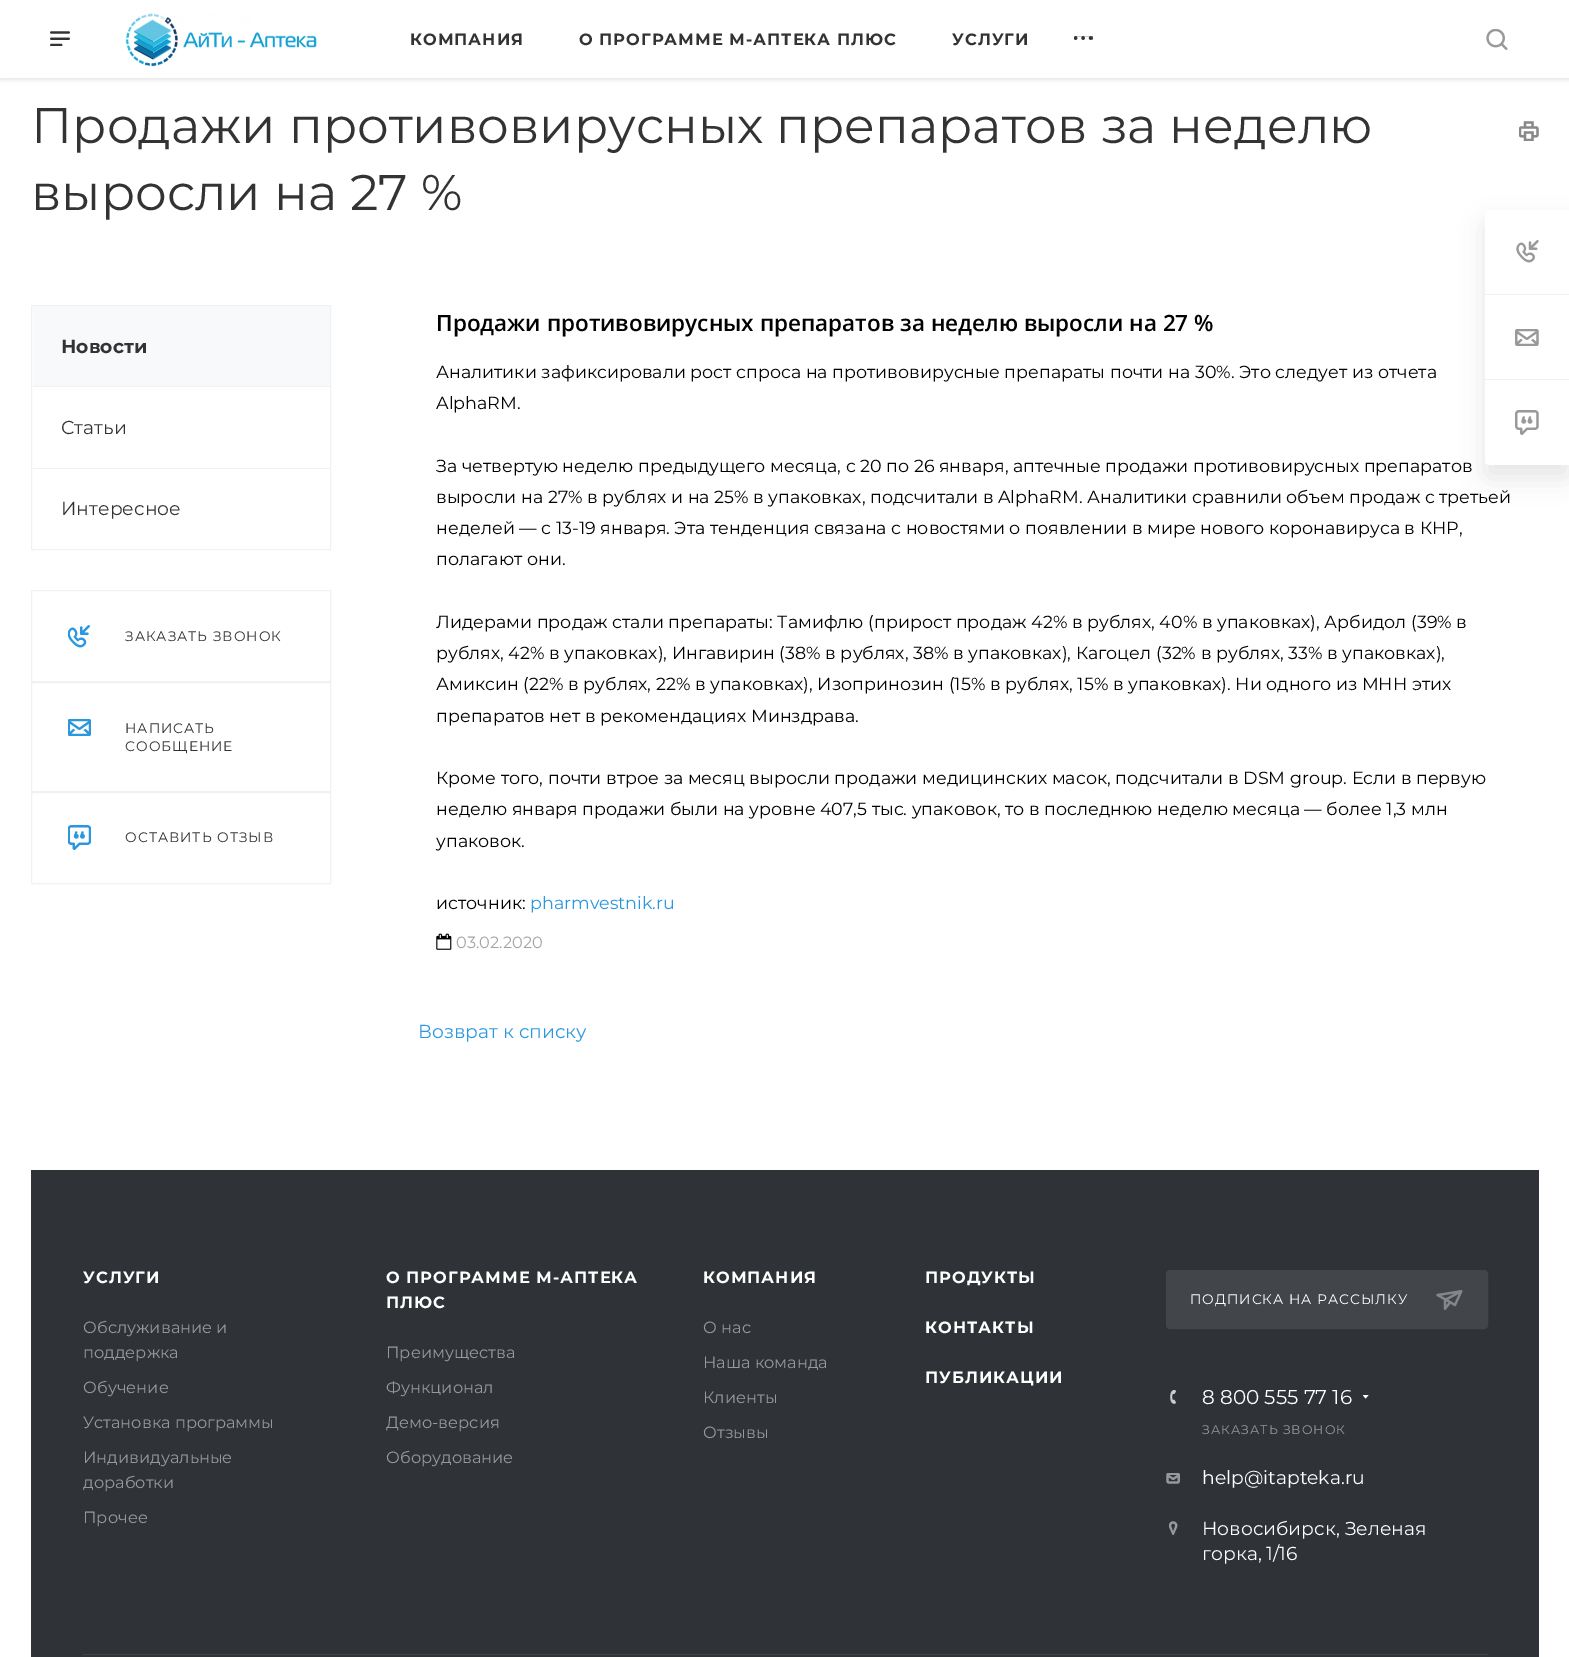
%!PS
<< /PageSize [1569 1657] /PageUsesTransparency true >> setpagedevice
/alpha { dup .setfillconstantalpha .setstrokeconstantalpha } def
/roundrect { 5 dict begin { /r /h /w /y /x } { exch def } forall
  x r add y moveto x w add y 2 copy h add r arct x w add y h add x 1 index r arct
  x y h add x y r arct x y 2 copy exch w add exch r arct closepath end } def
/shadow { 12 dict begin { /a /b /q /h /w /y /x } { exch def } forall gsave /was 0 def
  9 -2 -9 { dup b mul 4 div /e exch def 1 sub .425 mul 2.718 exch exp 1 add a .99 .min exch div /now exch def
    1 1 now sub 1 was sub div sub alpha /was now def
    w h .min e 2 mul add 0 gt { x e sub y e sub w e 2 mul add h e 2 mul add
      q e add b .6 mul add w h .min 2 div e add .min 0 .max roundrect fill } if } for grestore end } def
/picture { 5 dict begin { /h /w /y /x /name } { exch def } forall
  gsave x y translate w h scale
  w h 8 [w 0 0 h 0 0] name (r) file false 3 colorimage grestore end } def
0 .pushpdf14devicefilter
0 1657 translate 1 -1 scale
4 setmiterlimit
1 setgray
0 0 1569 1657 rectfill
0 setgray
0 1 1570 78 0 3 0.14 shadow
1 setgray
0 0 1569 78 rectfill
(img1.rgb) 50 31 20 15 picture
(img2.rgb) 125 13 192 54 picture
/Montserrat-Bold [16.25 0 0 -16.25 0 0] selectfont
0.2 setgray
410 45 moveto 1 0 (КОМПАНИЯ) ashow
579 45 moveto 1 0 (О ПРОГРАММЕ М-АПТЕКА ПЛЮС) ashow
952 45 moveto 1 0 (УСЛУГИ) ashow
1074 36 19 4 rectfill
(img3.rgb) 1074 36 19 4 picture
(img4.rgb) 1486 29 22 21 picture
/Montserrat-Regular [50 0 0 -50 0 0] selectfont
31 143 moveto (Продажи противовирусных препаратов за неделю) show
31 210 moveto (выросли на 27 %) show
(img5.rgb) 1519 121 20 20 picture
(img6.rgb) 1519 121 20 20 picture
0.937 0.945 0.961 setrgbcolor
31.5 305.5 299 244 rectstroke
0.973 0.976 0.984 setrgbcolor
33 306 297 80 rectfill
/Montserrat-Bold [18.75 0 0 -18.75 0 0] selectfont
0.2 setgray
61 353 moveto (Новости) show
0.937 0.945 0.961 setrgbcolor
33 386 297 1 rectfill
/Montserrat-Regular [18.75 0 0 -18.75 0 0] selectfont
0.2 setgray
61 434 moveto (Статьи) show
0.937 0.945 0.961 setrgbcolor
33 468 297 1 rectfill
0.2 setgray
61 515 moveto (Интересное) show
0.937 0.945 0.961 setrgbcolor
31.5 590.5 299 92 rectstroke
(img7.rgb) 68 625 22 23 picture
/Montserrat-Regular [13.75 0 0 -13.75 0 0] selectfont
0.2 setgray
125 641 moveto 1 0 (ЗАКАЗАТЬ ЗВОНОК) ashow
0.937 0.945 0.961 setrgbcolor
31.5 681.5 299 111 rectstroke
(img8.rgb) 68 719 23 17 picture
0.2 setgray
125 733 moveto 1 0 (НАПИСАТЬ) ashow
125 751 moveto 1 0 (СООБЩЕНИЕ) ashow
0.937 0.945 0.961 setrgbcolor
31.5 791.5 299 92 rectstroke
(img9.rgb) 68 825 23 25 picture
0.2 setgray
125 842 moveto 1 0 (ОСТАВИТЬ ОТЗЫВ) ashow
/OpenSans-SemiBold [22.5 0 0 -22.5 0 0] selectfont
0 setgray
436 331 moveto (Продажи противовирусных препаратов за неделю выросли на 27 %) show
/Montserrat-Regular [17.5 0 0 -17.5 0 0] selectfont
436 378 moveto (Аналитики зафиксировали рост спроса на противовирусные препараты почти на 30%. Это следует из отчета) show
436 409 moveto (AlphaRM.) show
436 472 moveto (За четвертую неделю предыдущего месяца, с 20 по 26 января, аптечные продажи противовирусных препаратов) show
436 503 moveto (выросли на 27% в рублях и на 25% в упаковках, подсчитали в AlphaRM. Аналитики сравнили объем продаж с третьей) show
436 534 moveto (неделей — с 13-19 января. Эта тенденция связана с новостями о появлении в мире нового коронавируса в КНР,) show
436 565 moveto (полагают они.) show
436 628 moveto (Лидерами продаж стали препараты: Тамифлю \(прирост продаж 42% в рублях, 40% в упаковках\), Арбидол \(39% в) show
436 659 moveto (рублях, 42% в упаковках\), Ингавирин \(38% в рублях, 38% в упаковках\), Кагоцел \(32% в рублях, 33% в упаковках\),) show
436 690 moveto (Амиксин \(22% в рублях, 22% в упаковках\), Изопринозин \(15% в рублях, 15% в упаковках\). Ни одного из МНН этих) show
436 722 moveto (препаратов нет в рекомендациях Минздрава.) show
436 784 moveto (Кроме того, почти втрое за месяц выросли продажи медицинских масок, подсчитали в DSM group. Если в первую) show
436 815 moveto (неделю января продажи были на уровне 407,5 тыс. упаковок, то в последнюю неделю месяца — более 1,3 млн) show
436 847 moveto (упаковок.) show
436 909 moveto (источник:) show
0.169 0.592 0.875 setrgbcolor
530 909 moveto (pharmvestnik.ru) show
(img10.rgb) 436 933 16 17 picture
/Montserrat-Regular [16.25 0 0 -16.25 0 0] selectfont
0.643 setgray
456 948 moveto (03.02.2020) show
/Montserrat-Regular [18.75 0 0 -18.75 0 0] selectfont
0.169 0.592 0.875 setrgbcolor
418 1038 moveto (Возврат к списку) show
0 setgray
1485 223 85 255 4 12.5 0.1 shadow
1 setgray
newpath 1489 210 moveto 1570 210 lineto 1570 465 lineto 1489 465 lineto 1487 465 1485 463 1485 461 curveto 1485 214 lineto 1485 212 1487 210 1489 210 curveto closepath fill
0.949 setgray
1485 294 84 1 rectfill
(img11.rgb) 1516 240 23 23 picture
1485 379 84 1 rectfill
(img12.rgb) 1515 329 24 17 picture
(img13.rgb) 1515 410 24 25 picture
0.184 0.2 0.22 setrgbcolor
31 1170 1508 487 rectfill
/Montserrat-Bold [16.25 0 0 -16.25 0 0] selectfont
1 setgray
83 1283 moveto 1 0 (УСЛУГИ) ashow
/Montserrat-Regular [16.25 0 0 -16.25 0 0] selectfont
0.6 setgray
83 1333 moveto (Обслуживание и) show
83 1358 moveto (поддержка) show
83 1393 moveto (Обучение) show
83 1428 moveto (Установка программы) show
83 1463 moveto (Индивидуальные) show
83 1488 moveto (доработки) show
83 1523 moveto (Прочее) show
/Montserrat-Bold [16.25 0 0 -16.25 0 0] selectfont
1 setgray
386 1283 moveto 1 0 (О ПРОГРАММЕ М-АПТЕКА) ashow
386 1308 moveto 1 0 (ПЛЮС) ashow
/Montserrat-Regular [16.25 0 0 -16.25 0 0] selectfont
0.6 setgray
386 1358 moveto (Преимущества) show
386 1393 moveto (Функционал) show
386 1428 moveto (Демо-версия) show
386 1463 moveto (Оборудование) show
/Montserrat-Bold [16.25 0 0 -16.25 0 0] selectfont
1 setgray
703 1283 moveto 1 0 (КОМПАНИЯ) ashow
/Montserrat-Regular [16.25 0 0 -16.25 0 0] selectfont
0.6 setgray
703 1333 moveto (О нас) show
703 1368 moveto (Наша команда) show
703 1403 moveto (Клиенты) show
703 1438 moveto (Отзывы) show
/Montserrat-Bold [16.25 0 0 -16.25 0 0] selectfont
1 setgray
925 1283 moveto 1 0 (ПРОДУКТЫ) ashow
925 1333 moveto 1 0 (КОНТАКТЫ) ashow
925 1383 moveto 1 0 (ПУБЛИКАЦИИ) ashow
0.259 0.271 0.29 setrgbcolor
1166.5 1270.5 321 58 3.5 roundrect gsave fill grestore
stroke
/Montserrat-Regular [13.75 0 0 -13.75 0 0] selectfont
1 setgray
1190 1304 moveto 1 0 (ПОДПИСКА НА РАССЫЛКУ) ashow
(img14.rgb) 1436 1290 27 20 picture
(img15.rgb) 1170 1390 6 14 picture
(img16.rgb) 1170 1390 6 14 picture
/Montserrat-Regular [20 0 0 -20 0 0] selectfont
1202 1404 moveto (8 800 555 77 16) show
(img17.rgb) 1363 1395 6 4 picture
/Montserrat-Regular [12.5 0 0 -12.5 0 0] selectfont
0.6 setgray
1202 1434 moveto 1 0 (ЗАКАЗАТЬ ЗВОНОК) ashow
(img18.rgb) 1166 1473 14 11 picture
/Montserrat-Regular [18.75 0 0 -18.75 0 0] selectfont
1 setgray
1202 1484 moveto (help@itapteka.ru) show
(img19.rgb) 1169 1521 9 14 picture
1202 1535 moveto (Новосибирск, Зеленая) show
1202 1560 moveto (горка, 1/16) show
0.251 0.263 0.282 setrgbcolor
83 1654 1405 1 rectfill
.poppdf14devicefilter showpage
